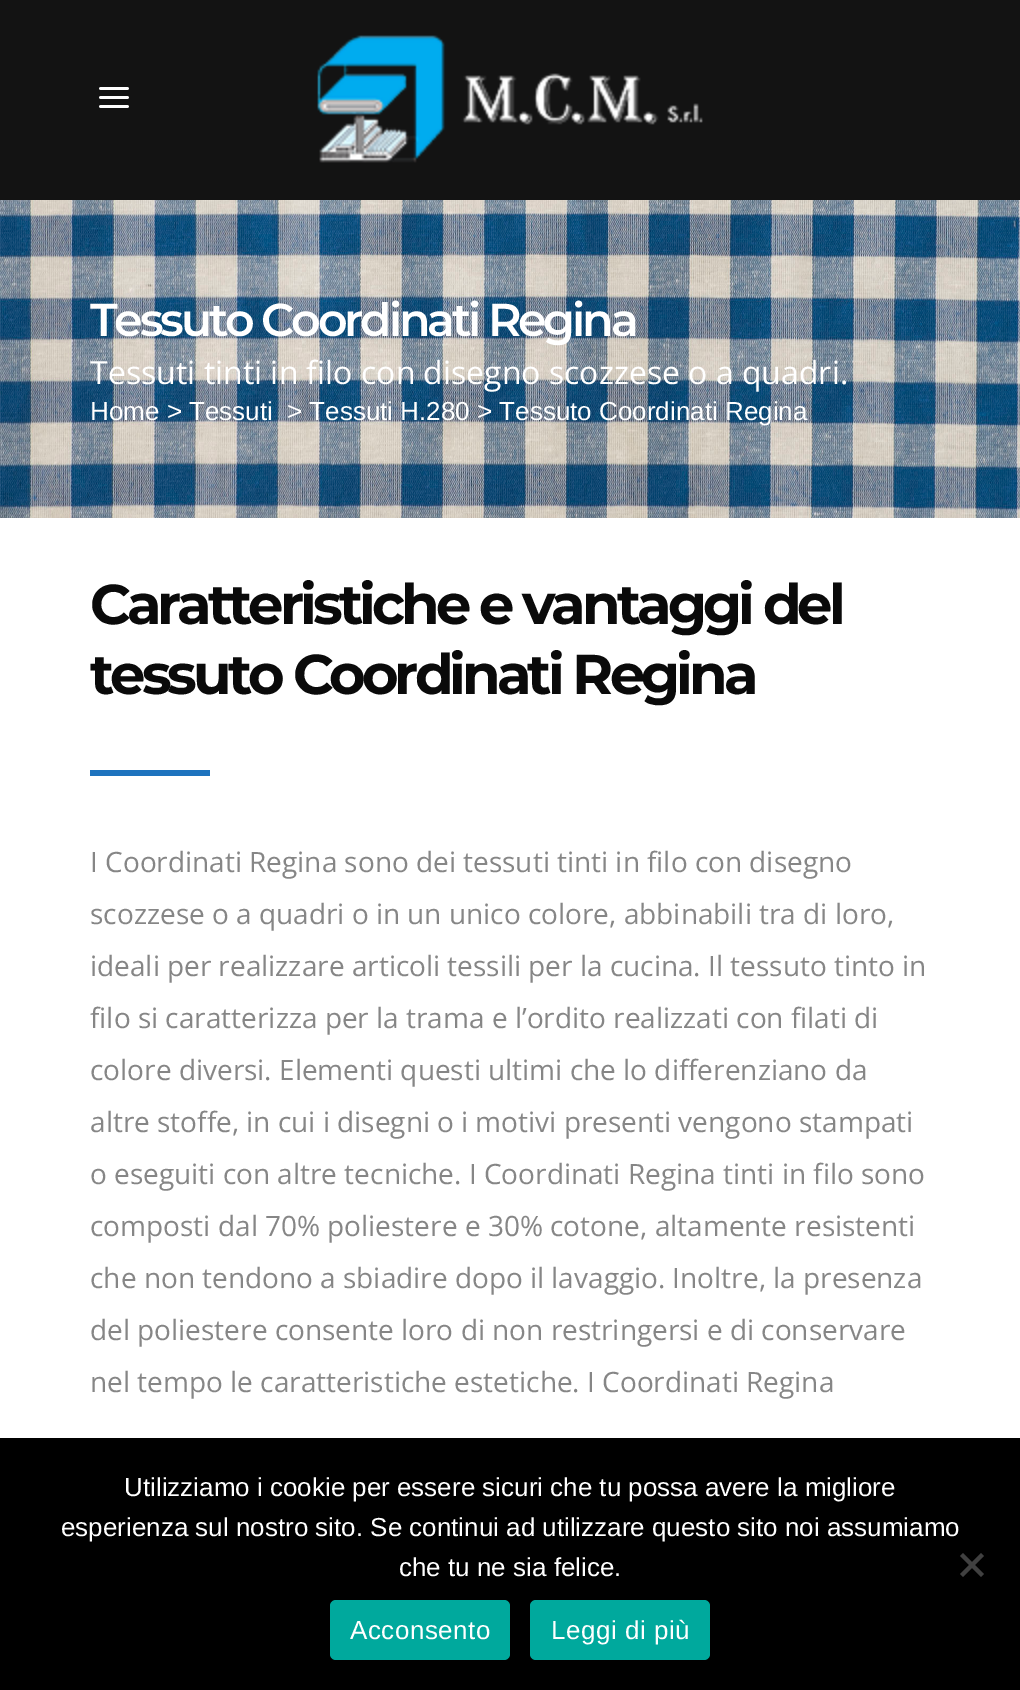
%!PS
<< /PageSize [1020 1690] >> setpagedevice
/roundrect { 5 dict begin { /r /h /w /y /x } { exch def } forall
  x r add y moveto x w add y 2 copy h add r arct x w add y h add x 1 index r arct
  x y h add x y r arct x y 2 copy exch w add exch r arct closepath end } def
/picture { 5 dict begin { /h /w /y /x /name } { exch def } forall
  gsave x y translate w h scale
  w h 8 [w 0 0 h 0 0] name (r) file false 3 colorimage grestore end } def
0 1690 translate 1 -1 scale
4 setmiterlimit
1 setgray
0 0 1020 1690 rectfill
0.075 setgray
0 0 1020 200 rectfill
(img1.rgb) 99 87 30 21 picture
(img2.rgb) 317 35 386 128 picture
(img3.rgb) 0 200 1020 318 picture
/Montserrat-SemiBold [46 0 0 -46 0 0] selectfont
1 setgray
90 336 moveto -3.2 0 (Tessuto Coordinati Regina) ashow
/OpenSans-Regular [32 0 0 -32 0 0] selectfont
90 384 moveto (Tessuti tinti in filo con disegno scozzese o a quadri.) show
/LiberationSans-Regular [26 0 0 -26 0 0] selectfont
90 420 moveto (Home > Tessuti) show
287 420 moveto (> Tessuti H.280 > Tessuto Coordinati Regina) show
/Montserrat-Bold [56 0 0 -56 0 0] selectfont
0.039 setgray
90 624 moveto -4 0 (Caratteristiche e vantaggi del) ashow
90 694 moveto -4 0 (tessuto Coordinati Regina) ashow
0.118 0.451 0.745 setrgbcolor
90 770 120 6 rectfill
/OpenSans-Regular [28 0 0 -28 0 0] selectfont
0.525 setgray
90 872 moveto (I Coordinati Regina sono dei tessuti tinti in filo con disegno) show
90 924 moveto (scozzese o a quadri o in un unico colore, abbinabili tra di loro,) show
90 976 moveto (ideali per realizzare articoli tessili per la cucina. Il tessuto tinto in) show
90 1028 moveto (filo si caratterizza per la trama e l’ordito realizzati con filati di) show
90 1080 moveto (colore diversi. Elementi questi ultimi che lo differenziano da) show
90 1132 moveto (altre stoffe, in cui i disegni o i motivi presenti vengono stampati) show
90 1184 moveto (o eseguiti con altre tecniche. I Coordinati Regina tinti in filo sono) show
90 1236 moveto (composti dal 70% poliestere e 30% cotone, altamente resistenti) show
90 1288 moveto (che non tendono a sbiadire dopo il lavaggio. Inoltre, la presenza) show
90 1340 moveto (del poliestere consente loro di non restringersi e di conservare) show
90 1392 moveto (nel tempo le caratteristiche estetiche. I Coordinati Regina) show
0 setgray
0 1438 1020 252 rectfill
/LiberationSans-Regular [26 0 0 -26 0 0] selectfont
1 setgray
124 1496 moveto (Utilizziamo i cookie per essere sicuri che tu possa avere la migliore) show
61 1536 moveto (esperienza sul nostro sito. Se continui ad utilizzare questo sito noi assumiamo) show
399 1576 moveto (che tu ne sia felice.) show
0.251 setgray
newpath 981 1553 moveto 984 1556 lineto 963 1577 lineto 960 1574 lineto closepath fill
newpath 960 1556 moveto 963 1553 lineto 984 1574 lineto 981 1577 lineto closepath fill
0 0.663 0.616 setrgbcolor
330 1600 180 60 6 roundrect fill
1 setgray
350 1639 moveto 0.5 0 (Acconsento) ashow
0 0.663 0.616 setrgbcolor
530 1600 180 60 6 roundrect fill
1 setgray
551 1639 moveto 0.5 0 (Leggi di più) ashow
showpage
